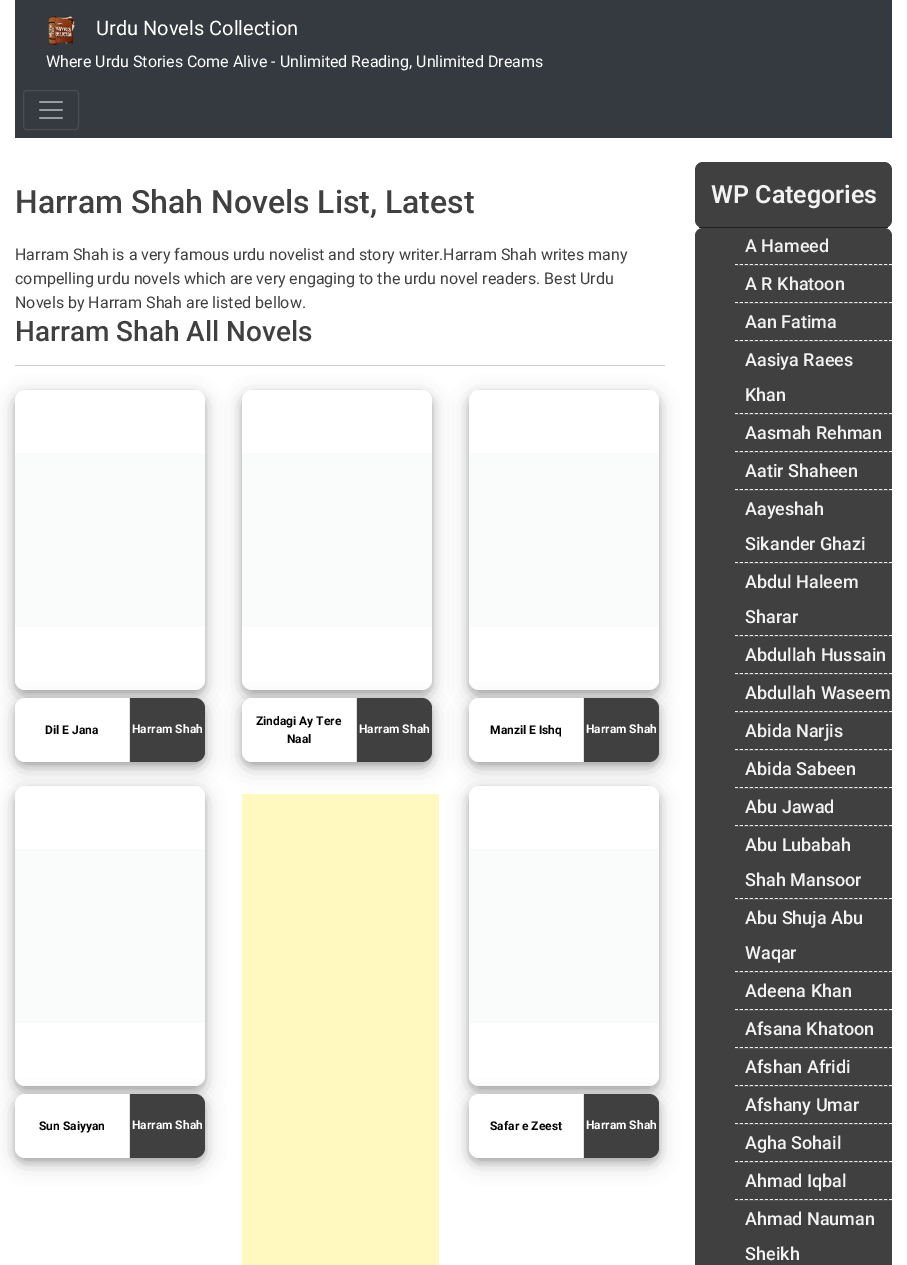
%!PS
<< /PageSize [907 1265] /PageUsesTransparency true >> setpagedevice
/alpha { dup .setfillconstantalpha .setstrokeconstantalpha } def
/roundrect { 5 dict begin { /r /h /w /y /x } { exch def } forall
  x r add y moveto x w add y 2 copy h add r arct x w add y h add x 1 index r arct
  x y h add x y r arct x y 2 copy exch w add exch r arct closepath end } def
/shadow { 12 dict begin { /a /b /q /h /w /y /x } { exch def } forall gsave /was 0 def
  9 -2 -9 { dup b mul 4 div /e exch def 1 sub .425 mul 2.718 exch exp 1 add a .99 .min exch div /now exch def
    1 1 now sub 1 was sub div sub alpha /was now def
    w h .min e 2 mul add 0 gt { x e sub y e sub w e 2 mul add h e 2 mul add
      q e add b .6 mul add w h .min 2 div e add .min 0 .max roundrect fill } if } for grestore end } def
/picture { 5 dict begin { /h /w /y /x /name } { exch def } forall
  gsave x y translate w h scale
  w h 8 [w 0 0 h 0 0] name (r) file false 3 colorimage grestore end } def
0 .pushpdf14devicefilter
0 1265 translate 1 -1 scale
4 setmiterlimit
1 setgray
0 0 907 1265 rectfill
0.204 0.227 0.251 setrgbcolor
15 0 877 138 rectfill
(img1.rgb) 48 15 27 30 picture
/Roboto-Regular [20 0 0 -20 0 0] selectfont
1 setgray
96 35 moveto (Urdu Novels Collection) show
/Roboto-Regular [16 0 0 -16 0 0] selectfont
46 67 moveto (Where Urdu Stories Come Alive - Unlimited Reading, Unlimited Dreams) show
0.282 0.306 0.325 setrgbcolor
23.5 90.5 55 39 3.5 roundrect stroke
(img2.rgb) 39 101 24 18 picture
/Roboto-Medium [32 0 0 -32 0 0] selectfont
0.251 setgray
15 213 moveto (Harram Shah Novels List, Latest) show
/Roboto-Regular [16 0 0 -16 0 0] selectfont
15 260 moveto (Harram Shah is a very famous urdu novelist and story writer.Harram Shah writes many) show
15 284 moveto (compelling urdu novels which are very engaging to the urdu novel readers. Best Urdu) show
15 308 moveto (Novels by Harram Shah are listed bellow.) show
/Roboto-Medium [28 0 0 -28 0 0] selectfont
15 341 moveto (Harram Shah All Novels) show
0.8 setgray
15 365 650 1 rectfill
0 setgray
15 396 190 300 10 10 0.19 shadow
15 394 190 300 10 4 0.2 shadow
1 setgray
15 390 190 300 10 roundrect fill
0.98 0.984 0.984 setrgbcolor
15 453 190 174 rectfill
0 setgray
15 704 190 64 10 10 0.19 shadow
15 702 190 64 10 4 0.2 shadow
1 setgray
15 698 190 64 10 roundrect fill
/Roboto-Bold [12 0 0 -12 0 0] selectfont
0 setgray
45 734 moveto (Dil E Jana) show
0.251 setgray
newpath 129 698 moveto 195 698 lineto 200.5 698 205 702.5 205 708 curveto 205 752 lineto 205 757.5 200.5 762 195 762 curveto 129 762 lineto closepath fill
0.871 0.886 0.902 setrgbcolor
129 698 1 64 rectfill
1 setgray
132 733 moveto (Harram Shah) show
0 setgray
242 396 190 300 10 10 0.19 shadow
242 394 190 300 10 4 0.2 shadow
1 setgray
242 390 190 300 10 roundrect fill
0.98 0.984 0.984 setrgbcolor
242 453 190 174 rectfill
0 setgray
242 704 190 64 10 10 0.19 shadow
242 702 190 64 10 4 0.2 shadow
1 setgray
242 698 190 64 10 roundrect fill
0 setgray
256 725 moveto (Zindagi Ay Tere) show
287 743 moveto (Naal) show
0.251 setgray
newpath 356 698 moveto 422 698 lineto 427.5 698 432 702.5 432 708 curveto 432 752 lineto 432 757.5 427.5 762 422 762 curveto 356 762 lineto closepath fill
0.871 0.886 0.902 setrgbcolor
356 698 1 64 rectfill
1 setgray
359 733 moveto (Harram Shah) show
0 setgray
469 396 190 300 10 10 0.19 shadow
469 394 190 300 10 4 0.2 shadow
1 setgray
469 390 190 300 10 roundrect fill
0.98 0.984 0.984 setrgbcolor
469 453 190 174 rectfill
0 setgray
469 704 190 64 10 10 0.19 shadow
469 702 190 64 10 4 0.2 shadow
1 setgray
469 698 190 64 10 roundrect fill
0 setgray
490 734 moveto (Manzil E Ishq) show
0.251 setgray
newpath 583 698 moveto 649 698 lineto 654.5 698 659 702.5 659 708 curveto 659 752 lineto 659 757.5 654.5 762 649 762 curveto 583 762 lineto closepath fill
0.871 0.886 0.902 setrgbcolor
583 698 1 64 rectfill
1 setgray
586 733 moveto (Harram Shah) show
0 setgray
15 792 190 300 10 10 0.19 shadow
15 790 190 300 10 4 0.2 shadow
1 setgray
15 786 190 300 10 roundrect fill
0.98 0.984 0.984 setrgbcolor
15 849 190 174 rectfill
0 setgray
15 1100 190 64 10 10 0.19 shadow
15 1098 190 64 10 4 0.2 shadow
1 setgray
15 1094 190 64 10 roundrect fill
0 setgray
39 1130 moveto (Sun Saiyyan) show
0.251 setgray
newpath 129 1094 moveto 195 1094 lineto 200.5 1094 205 1098.5 205 1104 curveto 205 1148 lineto 205 1153.5 200.5 1158 195 1158 curveto 129 1158 lineto closepath fill
0.871 0.886 0.902 setrgbcolor
129 1094 1 64 rectfill
1 setgray
132 1129 moveto (Harram Shah) show
1 0.976 0.753 setrgbcolor
242 794 197 471 rectfill
0 setgray
469 792 190 300 10 10 0.19 shadow
469 790 190 300 10 4 0.2 shadow
1 setgray
469 786 190 300 10 roundrect fill
0.98 0.984 0.984 setrgbcolor
469 849 190 174 rectfill
0 setgray
469 1100 190 64 10 10 0.19 shadow
469 1098 190 64 10 4 0.2 shadow
1 setgray
469 1094 190 64 10 roundrect fill
0 setgray
490 1130 moveto (Safar e Zeest) show
0.251 setgray
newpath 583 1094 moveto 649 1094 lineto 654.5 1094 659 1098.5 659 1104 curveto 659 1148 lineto 659 1153.5 654.5 1158 649 1158 curveto 583 1158 lineto closepath fill
0.871 0.886 0.902 setrgbcolor
583 1094 1 64 rectfill
1 setgray
586 1129 moveto (Harram Shah) show
0.251 setgray
695 162 197 66 8 roundrect fill
0.133 setgray
699 227 189 1 rectfill
/Roboto-SemiBold [25 0 0 -25 0 0] selectfont
0.949 setgray
711 203 moveto (WP Categories) show
0.251 setgray
newpath 703 228 moveto 884 228 lineto 888.5 228 892 231.5 892 236 curveto 892 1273 lineto 695 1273 lineto 695 236 lineto 695 231.5 698.5 228 703 228 curveto closepath fill
0.941 setgray
[3 1.97] 0 setdash
newpath 735 264.5 moveto 892 264.5 lineto stroke
/Roboto-Medium [18 0 0 -18 0 0] selectfont
0.949 setgray
745 252 moveto (A Hameed) show
0.325 setgray
735 265 157 1 rectfill
0.941 setgray
newpath 735 302.5 moveto 892 302.5 lineto stroke
0.949 setgray
745 290 moveto (A R Khatoon) show
0.325 setgray
735 303 157 1 rectfill
0.941 setgray
newpath 735 340.5 moveto 892 340.5 lineto stroke
0.949 setgray
745 328 moveto (Aan Fatima) show
0.325 setgray
735 341 157 1 rectfill
0.941 setgray
newpath 735 413.5 moveto 892 413.5 lineto stroke
0.949 setgray
745 366 moveto (Aasiya Raees) show
745 401 moveto (Khan) show
0.325 setgray
735 414 157 1 rectfill
0.941 setgray
newpath 735 451.5 moveto 892 451.5 lineto stroke
0.949 setgray
745 439 moveto (Aasmah Rehman) show
0.325 setgray
735 452 157 1 rectfill
0.941 setgray
newpath 735 489.5 moveto 892 489.5 lineto stroke
0.949 setgray
745 477 moveto (Aatir Shaheen) show
0.325 setgray
735 490 157 1 rectfill
0.941 setgray
newpath 735 562.5 moveto 892 562.5 lineto stroke
0.949 setgray
745 515 moveto (Aayeshah) show
745 550 moveto (Sikander Ghazi) show
0.325 setgray
735 563 157 1 rectfill
0.941 setgray
newpath 735 635.5 moveto 892 635.5 lineto stroke
0.949 setgray
745 588 moveto (Abdul Haleem) show
745 623 moveto (Sharar) show
0.325 setgray
735 636 157 1 rectfill
0.941 setgray
newpath 735 673.5 moveto 892 673.5 lineto stroke
0.949 setgray
745 661 moveto (Abdullah Hussain) show
0.325 setgray
735 674 157 1 rectfill
0.941 setgray
newpath 735 711.5 moveto 892 711.5 lineto stroke
0.949 setgray
745 699 moveto (Abdullah Waseem) show
0.325 setgray
735 712 157 1 rectfill
0.941 setgray
newpath 735 749.5 moveto 892 749.5 lineto stroke
0.949 setgray
745 737 moveto (Abida Narjis) show
0.325 setgray
735 750 157 1 rectfill
0.941 setgray
newpath 735 787.5 moveto 892 787.5 lineto stroke
0.949 setgray
745 775 moveto (Abida Sabeen) show
0.325 setgray
735 788 157 1 rectfill
0.941 setgray
newpath 735 825.5 moveto 892 825.5 lineto stroke
0.949 setgray
745 813 moveto (Abu Jawad) show
0.325 setgray
735 826 157 1 rectfill
0.941 setgray
newpath 735 898.5 moveto 892 898.5 lineto stroke
0.949 setgray
745 851 moveto (Abu Lubabah) show
745 886 moveto (Shah Mansoor) show
0.325 setgray
735 899 157 1 rectfill
0.941 setgray
newpath 735 971.5 moveto 892 971.5 lineto stroke
0.949 setgray
745 924 moveto (Abu Shuja Abu) show
745 959 moveto (Waqar) show
0.325 setgray
735 972 157 1 rectfill
0.941 setgray
newpath 735 1009.5 moveto 892 1009.5 lineto stroke
0.949 setgray
745 997 moveto (Adeena Khan) show
0.325 setgray
735 1010 157 1 rectfill
0.941 setgray
newpath 735 1047.5 moveto 892 1047.5 lineto stroke
0.949 setgray
745 1035 moveto (Afsana Khatoon) show
0.325 setgray
735 1048 157 1 rectfill
0.941 setgray
newpath 735 1085.5 moveto 892 1085.5 lineto stroke
0.949 setgray
745 1073 moveto (Afshan Afridi) show
0.325 setgray
735 1086 157 1 rectfill
0.941 setgray
newpath 735 1123.5 moveto 892 1123.5 lineto stroke
0.949 setgray
745 1111 moveto (Afshany Umar) show
0.325 setgray
735 1124 157 1 rectfill
0.941 setgray
newpath 735 1161.5 moveto 892 1161.5 lineto stroke
0.949 setgray
745 1149 moveto (Agha Sohail) show
0.325 setgray
735 1162 157 1 rectfill
0.941 setgray
newpath 735 1199.5 moveto 892 1199.5 lineto stroke
0.949 setgray
745 1187 moveto (Ahmad Iqbal) show
0.325 setgray
735 1200 157 1 rectfill
0.949 setgray
745 1225 moveto (Ahmad Nauman) show
745 1260 moveto (Sheikh) show
.poppdf14devicefilter showpage
